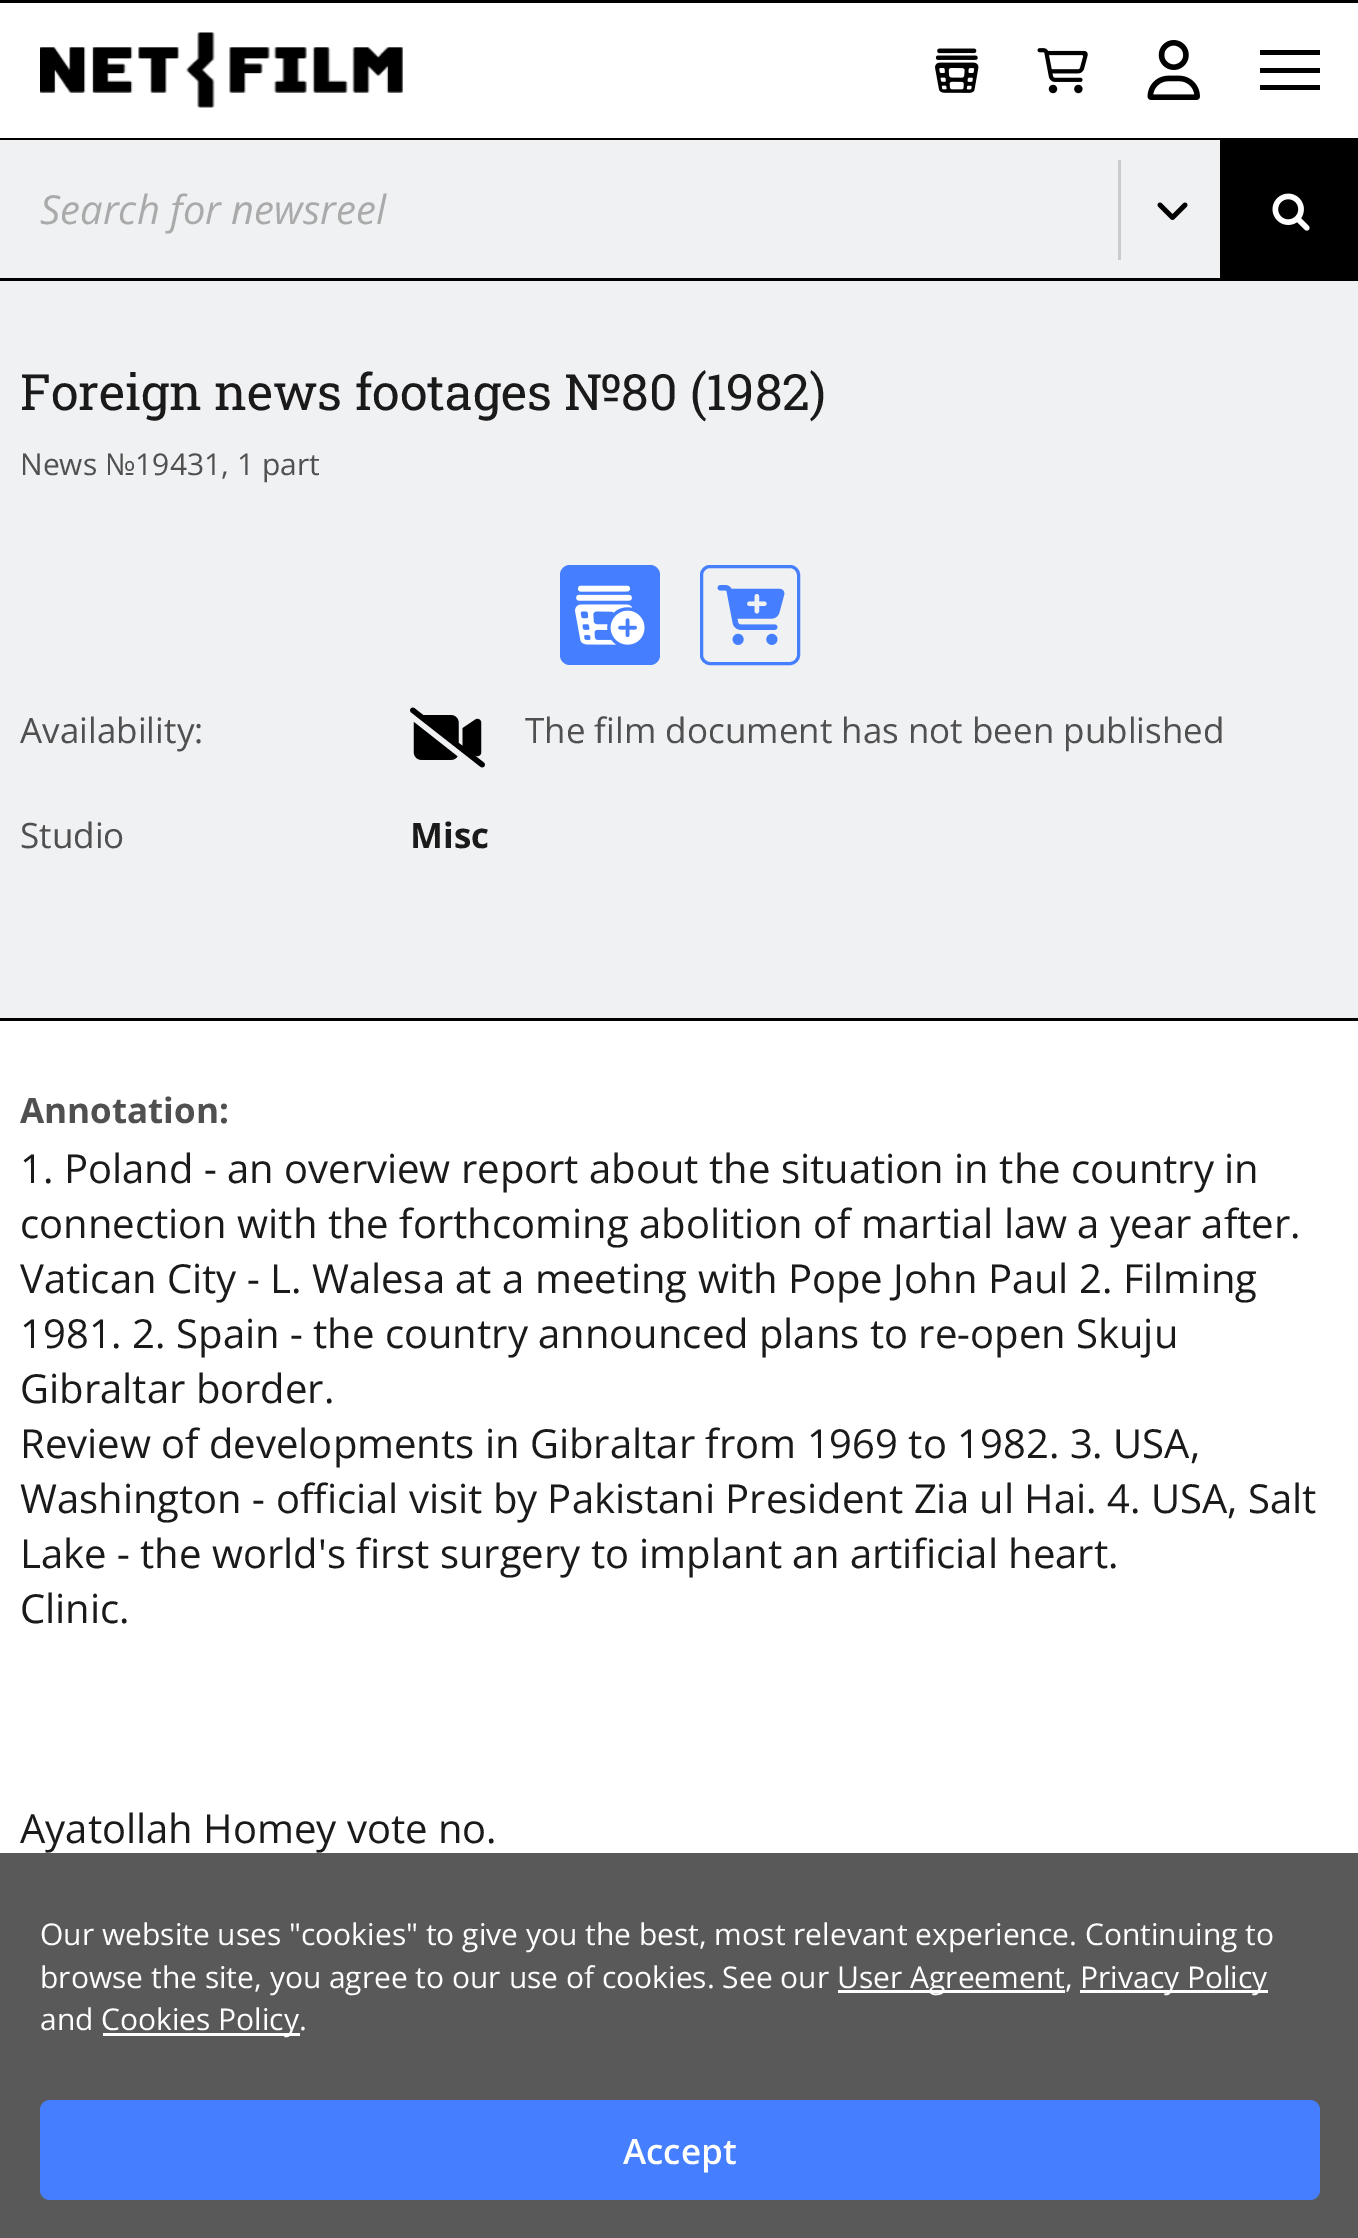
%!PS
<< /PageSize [1358 2238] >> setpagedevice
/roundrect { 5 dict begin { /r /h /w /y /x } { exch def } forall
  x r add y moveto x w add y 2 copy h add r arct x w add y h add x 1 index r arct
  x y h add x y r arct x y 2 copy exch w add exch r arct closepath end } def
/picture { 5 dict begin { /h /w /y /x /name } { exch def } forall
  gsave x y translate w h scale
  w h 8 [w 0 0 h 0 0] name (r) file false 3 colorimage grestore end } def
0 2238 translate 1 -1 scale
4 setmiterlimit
1 setgray
0 0 1358 2238 rectfill
0.349 setgray
0 1853 1358 385 rectfill
0 setgray
0 0 1358 3 rectfill
0 138 1358 2 rectfill
(img1.rgb) 40 32 363 76 picture
(img2.rgb) 935 48 44 45 picture
(img3.rgb) 1037 48 51 46 picture
(img4.rgb) 1147 40 53 60 picture
1260 50 60 5 rectfill
1260 68 60 5 rectfill
1260 85 60 5 rectfill
0 278 1358 3 rectfill
0.941 0.945 0.953 setrgbcolor
0 140 1220 138 rectfill
/OpenSans-Italic [40 0 0 -40 0 0] selectfont
0.667 setgray
40 224 moveto (Search for newsreel) show
0.796 setgray
1118 160 3 100 rectfill
(img5.rgb) 1157 202 31 18 picture
0 setgray
1220 140 138 138 rectfill
(img6.rgb) 1272 193 38 38 picture
0.941 0.945 0.953 setrgbcolor
0 281 1358 737 rectfill
0 setgray
0 1018 1358 3 rectfill
/RobotoSlab-Regular [50 0 0 -50 0 0] selectfont
0.102 setgray
20 410 moveto (Foreign news footages №80 \(1982\)) show
/OpenSans-Regular [30 0 0 -30 0 0] selectfont
0.314 setgray
20 475 moveto (News №19431, 1 part) show
0.271 0.498 1 setrgbcolor
560 565 100 100 10 roundrect fill
(img7.rgb) 575 585 70 60 picture
3 setlinewidth
701.5 566.5 97 97 8.5 roundrect stroke
(img8.rgb) 717 585 68 60 picture
/OpenSans-Regular [35 0 0 -35 0 0] selectfont
0.314 setgray
20 743 moveto (Availability:) show
(img9.rgb) 410 707 75 61 picture
525 743 moveto (The film document has not been published) show
20 848 moveto (Studio) show
/OpenSans-Bold [35 0 0 -35 0 0] selectfont
0.102 setgray
410 848 moveto (Misc) show
0.314 setgray
20 1123 moveto (Annotation:) show
/OpenSans-Regular [40 0 0 -40 0 0] selectfont
0.102 setgray
20 1183 moveto (1. Poland - an overview report about the situation in the country in) show
20 1238 moveto (connection with the forthcoming abolition of martial law a year after.) show
20 1293 moveto (Vatican City - L. Walesa at a meeting with Pope John Paul 2. Filming) show
20 1348 moveto (1981. 2. Spain - the country announced plans to re-open Skuju) show
20 1403 moveto (Gibraltar border.) show
20 1458 moveto (Review of developments in Gibraltar from 1969 to 1982. 3. USA,) show
20 1513 moveto (Washington - official visit by Pakistani President Zia ul Hai. 4. USA, Salt) show
20 1568 moveto (Lake - the world's first surgery to implant an artificial heart.) show
20 1623 moveto (Clinic.) show
20 1843 moveto (Ayatollah Homey vote no.) show
/OpenSans-Regular [30 0 0 -30 0 0] selectfont
1 setgray
40 1945 moveto (Our website uses "cookies" to give you the best, most relevant experience. Continuing to) show
40 1988 moveto (browse the site, you agree to our use of cookies. See our) show
838 1990 227 3 rectfill
837 1988 moveto (User Agreement,) show
1080 1990 188 3 rectfill
1080 1988 moveto (Privacy Policy) show
40 2030 moveto (and) show
103 2033 197 3 rectfill
101 2030 moveto (Cookies Policy.) show
0.271 0.498 1 setrgbcolor
40 2100 1280 100 10 roundrect fill
/OpenSans-SemiBold [35 0 0 -35 0 0] selectfont
1 setgray
623 2164 moveto (Accept) show
showpage
